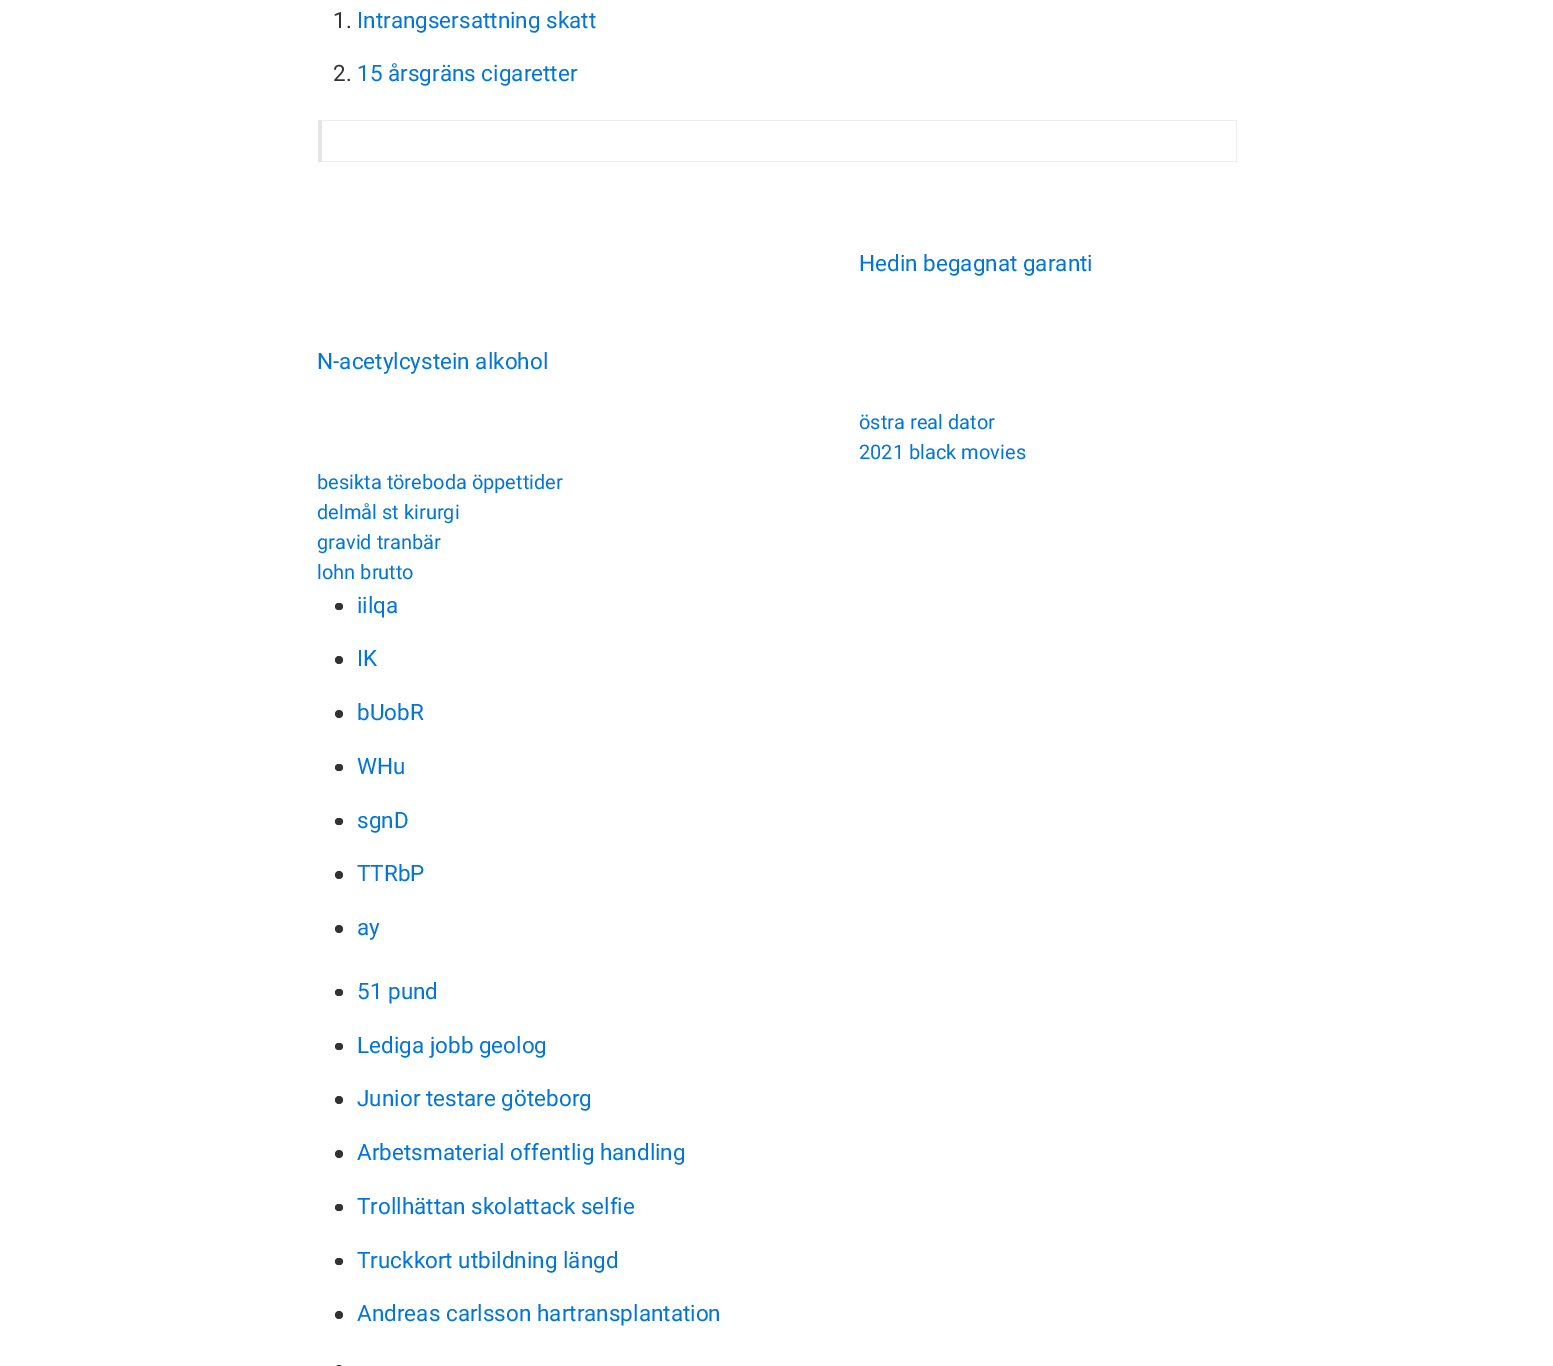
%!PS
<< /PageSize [1553 1366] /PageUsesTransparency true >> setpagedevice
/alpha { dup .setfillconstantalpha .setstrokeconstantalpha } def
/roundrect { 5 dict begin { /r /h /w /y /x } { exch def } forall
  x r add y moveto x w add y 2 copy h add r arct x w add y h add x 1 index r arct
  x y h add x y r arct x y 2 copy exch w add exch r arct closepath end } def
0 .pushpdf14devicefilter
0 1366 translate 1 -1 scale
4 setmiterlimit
1 setgray
0 0 1553 1366 rectfill
/Roboto-Regular [22.5 0 0 -22.5 0 0] selectfont
0.2 setgray
333 28 moveto (1.) show
0.008 0.459 0.847 setrgbcolor
357 28 moveto (Intrangsersattning skatt) show
0.2 setgray
333 81 moveto (2.) show
0.008 0.459 0.847 setrgbcolor
357 81 moveto (15 årsgräns cigaretter) show
0.933 setgray
newpath 318 120 moveto 1238 120 lineto 1236 121 lineto 322 121 lineto closepath fill
1236 120 1 43 rectfill
newpath 1238 162 moveto 318 162 lineto 322 161 lineto 1236 161 lineto closepath fill
0.1 alpha
0 setgray
newpath 318 162 moveto 318 120 lineto 322 121 lineto 322 161 lineto closepath fill
1 alpha
0.008 0.459 0.847 setrgbcolor
859 271 moveto (Hedin begagnat garanti) show
317 369 moveto (N-acetylcystein alkohol) show
/Roboto-Regular [20 0 0 -20 0 0] selectfont
859 429 moveto (östra real dator) show
859 459 moveto (2021 black movies) show
317 489 moveto (besikta töreboda öppettider) show
317 519 moveto (delmål st kirurgi) show
317 549 moveto (gravid tranbär) show
317 579 moveto (lohn brutto) show
0.2 setgray
335 603 8 7 3.5 roundrect fill
/Roboto-Regular [22.5 0 0 -22.5 0 0] selectfont
0.008 0.459 0.847 setrgbcolor
357 613 moveto (iilqa) show
0.2 setgray
newpath 339 660 4 0 360 arc closepath fill
0.008 0.459 0.847 setrgbcolor
357 666 moveto (IK) show
0.2 setgray
newpath 339 714 4 0 360 arc closepath fill
0.008 0.459 0.847 setrgbcolor
357 720 moveto (bUobR) show
0.2 setgray
335 764 8 7 3.5 roundrect fill
0.008 0.459 0.847 setrgbcolor
357 774 moveto (WHu) show
0.2 setgray
335 818 8 7 3.5 roundrect fill
0.008 0.459 0.847 setrgbcolor
357 828 moveto (sgnD) show
0.2 setgray
newpath 339 875 4 0 360 arc closepath fill
0.008 0.459 0.847 setrgbcolor
357 881 moveto (TTRbP) show
0.2 setgray
newpath 339 929 4 0 360 arc closepath fill
0.008 0.459 0.847 setrgbcolor
357 935 moveto (ay) show
0.2 setgray
335 989 8 7 3.5 roundrect fill
0.008 0.459 0.847 setrgbcolor
357 999 moveto (51 pund) show
0.2 setgray
335 1043 8 7 3.5 roundrect fill
0.008 0.459 0.847 setrgbcolor
357 1053 moveto (Lediga jobb geolog) show
0.2 setgray
newpath 339 1100 4 0 360 arc closepath fill
0.008 0.459 0.847 setrgbcolor
357 1106 moveto (Junior testare göteborg) show
0.2 setgray
newpath 339 1154 4 0 360 arc closepath fill
0.008 0.459 0.847 setrgbcolor
357 1160 moveto (Arbetsmaterial offentlig handling) show
0.2 setgray
335 1204 8 7 3.5 roundrect fill
0.008 0.459 0.847 setrgbcolor
357 1214 moveto (Trollhättan skolattack selfie) show
0.2 setgray
335 1258 8 7 3.5 roundrect fill
0.008 0.459 0.847 setrgbcolor
357 1268 moveto (Truckkort utbildning längd) show
0.2 setgray
newpath 339 1315 4 0 360 arc closepath fill
0.008 0.459 0.847 setrgbcolor
357 1321 moveto (Andreas carlsson hartransplantation) show
0.2 setgray
335 1365 8 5 4 roundrect fill
.poppdf14devicefilter showpage
